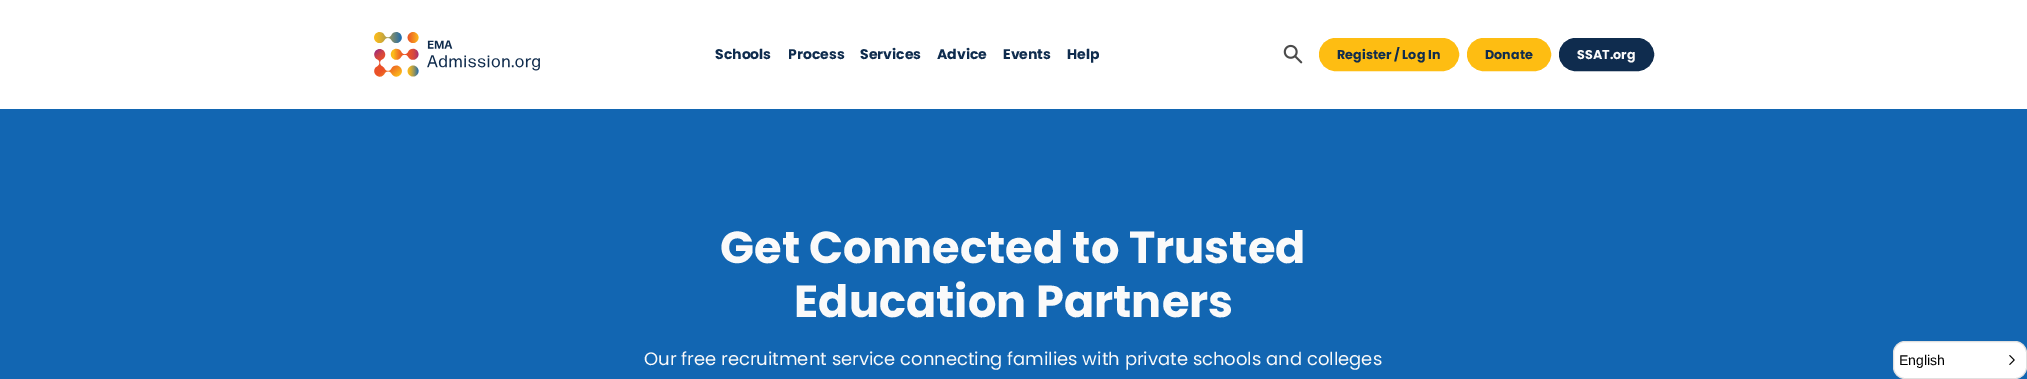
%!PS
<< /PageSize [2027 379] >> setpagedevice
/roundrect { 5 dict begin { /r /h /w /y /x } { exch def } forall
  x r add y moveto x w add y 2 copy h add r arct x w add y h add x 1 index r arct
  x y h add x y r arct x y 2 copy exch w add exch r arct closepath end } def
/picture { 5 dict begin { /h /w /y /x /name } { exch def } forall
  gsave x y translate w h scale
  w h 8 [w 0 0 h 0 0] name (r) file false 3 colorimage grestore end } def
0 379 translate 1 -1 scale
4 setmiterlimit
1 setgray
0 0 2027 379 rectfill
(img1.rgb) 374 32 166 45 picture
/Poppins-Bold [14 0 0 -14 0 0] selectfont
0.059 0.173 0.306 setrgbcolor
715 59 moveto (Schools) show
788 59 moveto (Process) show
860 59 moveto (Services) show
937 59 moveto (Advice) show
1003 59 moveto (Events) show
1067 59 moveto (Help) show
(img2.rgb) 1283 44 20 20 picture
0.996 0.741 0.071 setrgbcolor
1320 39 138 31 15.5 roundrect gsave fill grestore
2 setlinewidth
stroke
/Poppins-Bold [12.75 0 0 -12.75 0 0] selectfont
0.059 0.173 0.306 setrgbcolor
1337 59 moveto (Register / Log In) show
0.996 0.741 0.071 setrgbcolor
1468 39 82 31 15.5 roundrect gsave fill grestore
stroke
0.059 0.173 0.306 setrgbcolor
1485 59 moveto (Donate) show
1560 39 93 31 15.5 roundrect gsave fill grestore
stroke
0.98 setgray
1577 59 moveto (SSAT.org) show
0.071 0.4 0.698 setrgbcolor
0 109 2027 270 rectfill
/Poppins-Bold [44.75 0 0 -44.75 0 0] selectfont
0.98 setgray
720 263 moveto (Get Connected to Trusted) show
794 317 moveto (Education Partners) show
/Poppins-Regular [18 0 0 -18 0 0] selectfont
644 365 moveto (Our free recruitment service connecting families with private schools and colleges) show
1 setgray
1893.5 341.5 133 37 11.5 roundrect gsave fill grestore
0.878 setgray
1 setlinewidth
stroke
/LiberationSans-Regular [14 0 0 -14 0 0] selectfont
0 setgray
1899 365 moveto (English) show
(img3.rgb) 2009 355 6 10 picture
showpage
